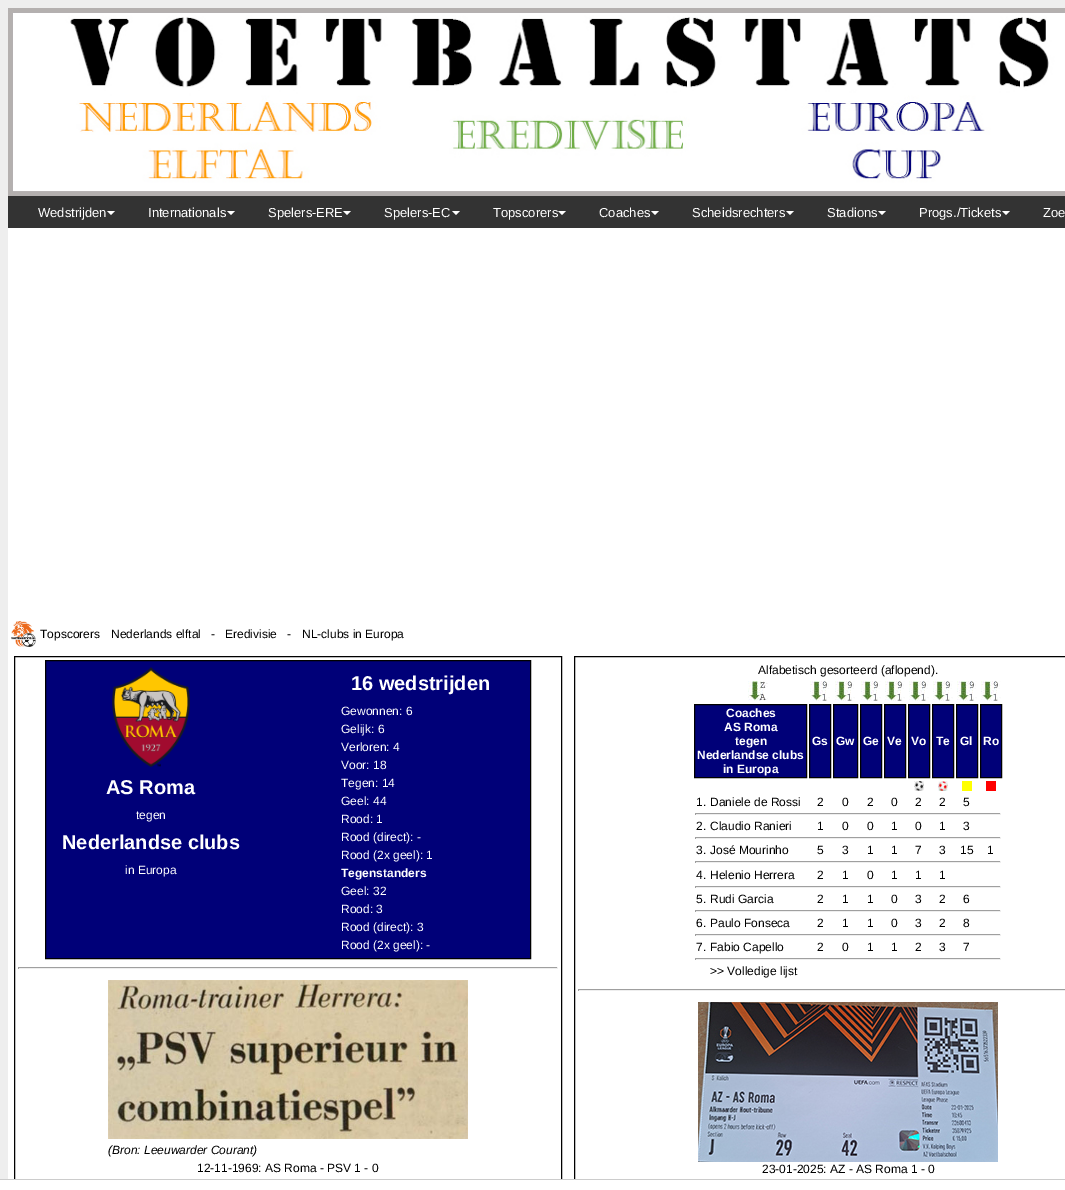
%!PS
<< /PageSize [1065 1190] >> setpagedevice
/picture { 5 dict begin { /h /w /y /x /name } { exch def } forall
  gsave x y translate w h scale
  w h 8 [w 0 0 h 0 0] name (r) file false 3 colorimage grestore end } def
0 1190 translate 1 -1 scale
4 setmiterlimit
0.933 setgray
0 0 1065 1190 rectfill
1 setgray
8 228 1057 951 rectfill
(img1.rgb) 8 8 1057 188 picture
0.2 setgray
8 196 1057 32 rectfill
/LiberationSans-Regular [13 0 0 -13 0 0] selectfont
1 setgray
38 217 moveto (Wedstrijden) show
newpath 107 211 moveto 115 211 lineto 111 215 lineto closepath fill
148 217 moveto (Internationals) show
newpath 227 211 moveto 235 211 lineto 231 215 lineto closepath fill
268 217 moveto (Spelers-ERE) show
newpath 343 211 moveto 351 211 lineto 347 215 lineto closepath fill
384 217 moveto (Spelers-EC) show
newpath 452 211 moveto 460 211 lineto 456 215 lineto closepath fill
493 217 moveto (Topscorers) show
newpath 558 211 moveto 566 211 lineto 562 215 lineto closepath fill
599 217 moveto (Coaches) show
newpath 651 211 moveto 659 211 lineto 655 215 lineto closepath fill
692 217 moveto (Scheidsrechters) show
newpath 786 211 moveto 794 211 lineto 790 215 lineto closepath fill
827 217 moveto (Stadions) show
newpath 878 211 moveto 886 211 lineto 882 215 lineto closepath fill
919 217 moveto (Progs./Tickets) show
newpath 1002 211 moveto 1010 211 lineto 1006 215 lineto closepath fill
1043 217 moveto (Zoe) show
(img2.rgb) 11 621 25 26 picture
/LiberationSans-Regular [12 0 0 -12 0 0] selectfont
0 setgray
40 638 moveto (Topscorers) show
111 638 moveto (Nederlands elftal   -) show
225 638 moveto (Eredivisie   -) show
302 638 moveto (NL-clubs in Europa) show
14.5 656.5 547 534 rectstroke
0 0 0.471 setrgbcolor
newpath 45.5 660.5 moveto 530.5 660.5 lineto 530.5 958.5 lineto 45.5 958.5 lineto closepath gsave fill grestore
0 setgray
stroke
(img3.rgb) 112 667 78 100 picture
/LiberationSans-Bold [20 0 0 -20 0 0] selectfont
1 setgray
106 794 moveto (AS Roma) show
/LiberationSans-Regular [12 0 0 -12 0 0] selectfont
136 819 moveto (tegen) show
/LiberationSans-Bold [20 0 0 -20 0 0] selectfont
62 849 moveto (Nederlandse clubs) show
/LiberationSans-Regular [12 0 0 -12 0 0] selectfont
125 874 moveto (in Europa) show
/LiberationSans-Bold [20 0 0 -20 0 0] selectfont
351 690 moveto (16 wedstrijden) show
/LiberationSans-Regular [12 0 0 -12 0 0] selectfont
341 715 moveto (Gewonnen: 6) show
341 733 moveto (Gelijk: 6) show
341 751 moveto (Verloren: 4) show
341 769 moveto (Voor: 18) show
341 787 moveto (Tegen: 14) show
341 805 moveto (Geel: 44) show
341 823 moveto (Rood: 1) show
341 841 moveto (Rood \(direct\): -) show
341 859 moveto (Rood \(2x geel\): 1) show
/LiberationSans-Bold [12 0 0 -12 0 0] selectfont
341 877 moveto (Tegenstanders) show
/LiberationSans-Regular [12 0 0 -12 0 0] selectfont
341 895 moveto (Geel: 32) show
341 913 moveto (Rood: 3) show
341 931 moveto (Rood \(direct\): 3) show
341 949 moveto (Rood \(2x geel\): -) show
0.624 setgray
18 967 540 1 rectfill
0.933 setgray
557 967 1 2 rectfill
18 968 540 1 rectfill
0.624 setgray
18 967 1 2 rectfill
(img4.rgb) 108 980 360 159 picture
/LiberationSans-Italic [12 0 0 -12 0 0] selectfont
0 setgray
108 1154 moveto (\(Bron: Leeuwarder Courant\)) show
/LiberationSans-Regular [12 0 0 -12 0 0] selectfont
197 1172 moveto (12-11-1969: AS Roma - PSV 1 - 0) show
574.5 656.5 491 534 rectstroke
758 674 moveto (Alfabetisch gesorteerd \(aflopend\).) show
(img5.rgb) 748 681 20 20 picture
(img6.rgb) 810 681 20 20 picture
(img6.rgb) 835 681 20 20 picture
(img6.rgb) 861 681 20 20 picture
(img6.rgb) 885 681 20 20 picture
(img6.rgb) 909 681 20 20 picture
(img6.rgb) 933 681 20 20 picture
(img6.rgb) 957 681 20 20 picture
(img6.rgb) 981 681 20 20 picture
0 0 0.471 setrgbcolor
newpath 694.5 704.5 moveto 806.5 704.5 lineto 806.5 777.5 lineto 694.5 777.5 lineto closepath gsave fill grestore
0 setgray
stroke
/LiberationSans-Bold [12 0 0 -12 0 0] selectfont
1 setgray
726 717 moveto (Coaches) show
724 731 moveto (AS Roma) show
735 745 moveto (tegen) show
697 759 moveto (Nederlandse clubs) show
723 773 moveto (in Europa) show
0 0 0.471 setrgbcolor
newpath 809.5 704.5 moveto 830.5 704.5 lineto 830.5 777.5 lineto 809.5 777.5 lineto closepath gsave fill grestore
0 setgray
stroke
1 setgray
812 745 moveto (Gs) show
0 0 0.471 setrgbcolor
newpath 833.5 704.5 moveto 857.5 704.5 lineto 857.5 777.5 lineto 833.5 777.5 lineto closepath gsave fill grestore
0 setgray
stroke
1 setgray
836 745 moveto (Gw) show
0 0 0.471 setrgbcolor
newpath 860.5 704.5 moveto 881.5 704.5 lineto 881.5 777.5 lineto 860.5 777.5 lineto closepath gsave fill grestore
0 setgray
stroke
1 setgray
863 745 moveto (Ge) show
0 0 0.471 setrgbcolor
newpath 884.5 704.5 moveto 905.5 704.5 lineto 905.5 777.5 lineto 884.5 777.5 lineto closepath gsave fill grestore
0 setgray
stroke
1 setgray
887 745 moveto (Ve) show
0 0 0.471 setrgbcolor
newpath 908.5 704.5 moveto 929.5 704.5 lineto 929.5 777.5 lineto 908.5 777.5 lineto closepath gsave fill grestore
0 setgray
stroke
1 setgray
911 745 moveto (Vo) show
0 0 0.471 setrgbcolor
newpath 932.5 704.5 moveto 953.5 704.5 lineto 953.5 777.5 lineto 932.5 777.5 lineto closepath gsave fill grestore
0 setgray
stroke
1 setgray
936 745 moveto (Te) show
0 0 0.471 setrgbcolor
newpath 956.5 704.5 moveto 977.5 704.5 lineto 977.5 777.5 lineto 956.5 777.5 lineto closepath gsave fill grestore
0 setgray
stroke
1 setgray
960 745 moveto (Gl) show
0 0 0.471 setrgbcolor
newpath 980.5 704.5 moveto 1001.5 704.5 lineto 1001.5 777.5 lineto 980.5 777.5 lineto closepath gsave fill grestore
0 setgray
stroke
1 setgray
983 745 moveto (Ro) show
(img7.rgb) 914 781 10 10 picture
(img8.rgb) 938 781 10 10 picture
1 1 0 setrgbcolor
962 781 10 10 rectfill
0.996 0 0 setrgbcolor
986 781 10 10 rectfill
/LiberationSans-Regular [12 0 0 -12 0 0] selectfont
0 setgray
696 806 moveto (1.) show
710 806 moveto (Daniele de Rossi) show
817 806 moveto (2) show
842 806 moveto (0) show
867 806 moveto (2) show
891 806 moveto (0) show
915 806 moveto (2) show
939 806 moveto (2) show
963 806 moveto (5) show
0.624 setgray
695 813 306 1 rectfill
0.933 setgray
1000 813 1 2 rectfill
695 814 306 1 rectfill
0.624 setgray
695 813 1 2 rectfill
0 setgray
696 830 moveto (2.) show
710 830 moveto (Claudio Ranieri) show
817 830 moveto (1) show
842 830 moveto (0) show
867 830 moveto (0) show
891 830 moveto (1) show
915 830 moveto (0) show
939 830 moveto (1) show
963 830 moveto (3) show
0.624 setgray
695 837 306 1 rectfill
0.933 setgray
1000 837 1 2 rectfill
695 838 306 1 rectfill
0.624 setgray
695 837 1 2 rectfill
0 setgray
696 854 moveto (3.) show
710 854 moveto (José Mourinho) show
817 854 moveto (5) show
842 854 moveto (3) show
867 854 moveto (1) show
891 854 moveto (1) show
915 854 moveto (7) show
939 854 moveto (3) show
960 854 moveto (15) show
987 854 moveto (1) show
0.624 setgray
695 861 306 1 rectfill
0.933 setgray
1000 861 1 2 rectfill
695 862 306 1 rectfill
0.624 setgray
695 861 1 2 rectfill
0 setgray
696 879 moveto (4.) show
710 879 moveto (Helenio Herrera) show
817 879 moveto (2) show
842 879 moveto (1) show
867 879 moveto (0) show
891 879 moveto (1) show
915 879 moveto (1) show
939 879 moveto (1) show
0.624 setgray
695 886 306 1 rectfill
0.933 setgray
1000 886 1 2 rectfill
695 887 306 1 rectfill
0.624 setgray
695 886 1 2 rectfill
0 setgray
696 903 moveto (5.) show
710 903 moveto (Rudi Garcia) show
817 903 moveto (2) show
842 903 moveto (1) show
867 903 moveto (1) show
891 903 moveto (0) show
915 903 moveto (3) show
939 903 moveto (2) show
963 903 moveto (6) show
0.624 setgray
695 910 306 1 rectfill
0.933 setgray
1000 910 1 2 rectfill
695 911 306 1 rectfill
0.624 setgray
695 910 1 2 rectfill
0 setgray
696 927 moveto (6.) show
710 927 moveto (Paulo Fonseca) show
817 927 moveto (2) show
842 927 moveto (1) show
867 927 moveto (1) show
891 927 moveto (0) show
915 927 moveto (3) show
939 927 moveto (2) show
963 927 moveto (8) show
0.624 setgray
695 934 306 1 rectfill
0.933 setgray
1000 934 1 2 rectfill
695 935 306 1 rectfill
0.624 setgray
695 934 1 2 rectfill
0 setgray
696 951 moveto (7.) show
710 951 moveto (Fabio Capello) show
817 951 moveto (2) show
842 951 moveto (0) show
867 951 moveto (1) show
891 951 moveto (1) show
915 951 moveto (2) show
939 951 moveto (3) show
963 951 moveto (7) show
0.624 setgray
695 958 306 1 rectfill
0.933 setgray
1000 958 1 2 rectfill
695 959 306 1 rectfill
0.624 setgray
695 958 1 2 rectfill
0 setgray
710 975 moveto (>> Volledige lijst) show
0.624 setgray
578 989 487 1 rectfill
0.933 setgray
578 990 487 1 rectfill
0.624 setgray
578 989 1 2 rectfill
(img9.rgb) 698 1002 300 160 picture
0 setgray
762 1173 moveto (23-01-2025: AZ - AS Roma 1 - 0) show
1 setgray
0 1180 1065 10 rectfill
0.8 setgray
0 1179 1065 1 rectfill
showpage
